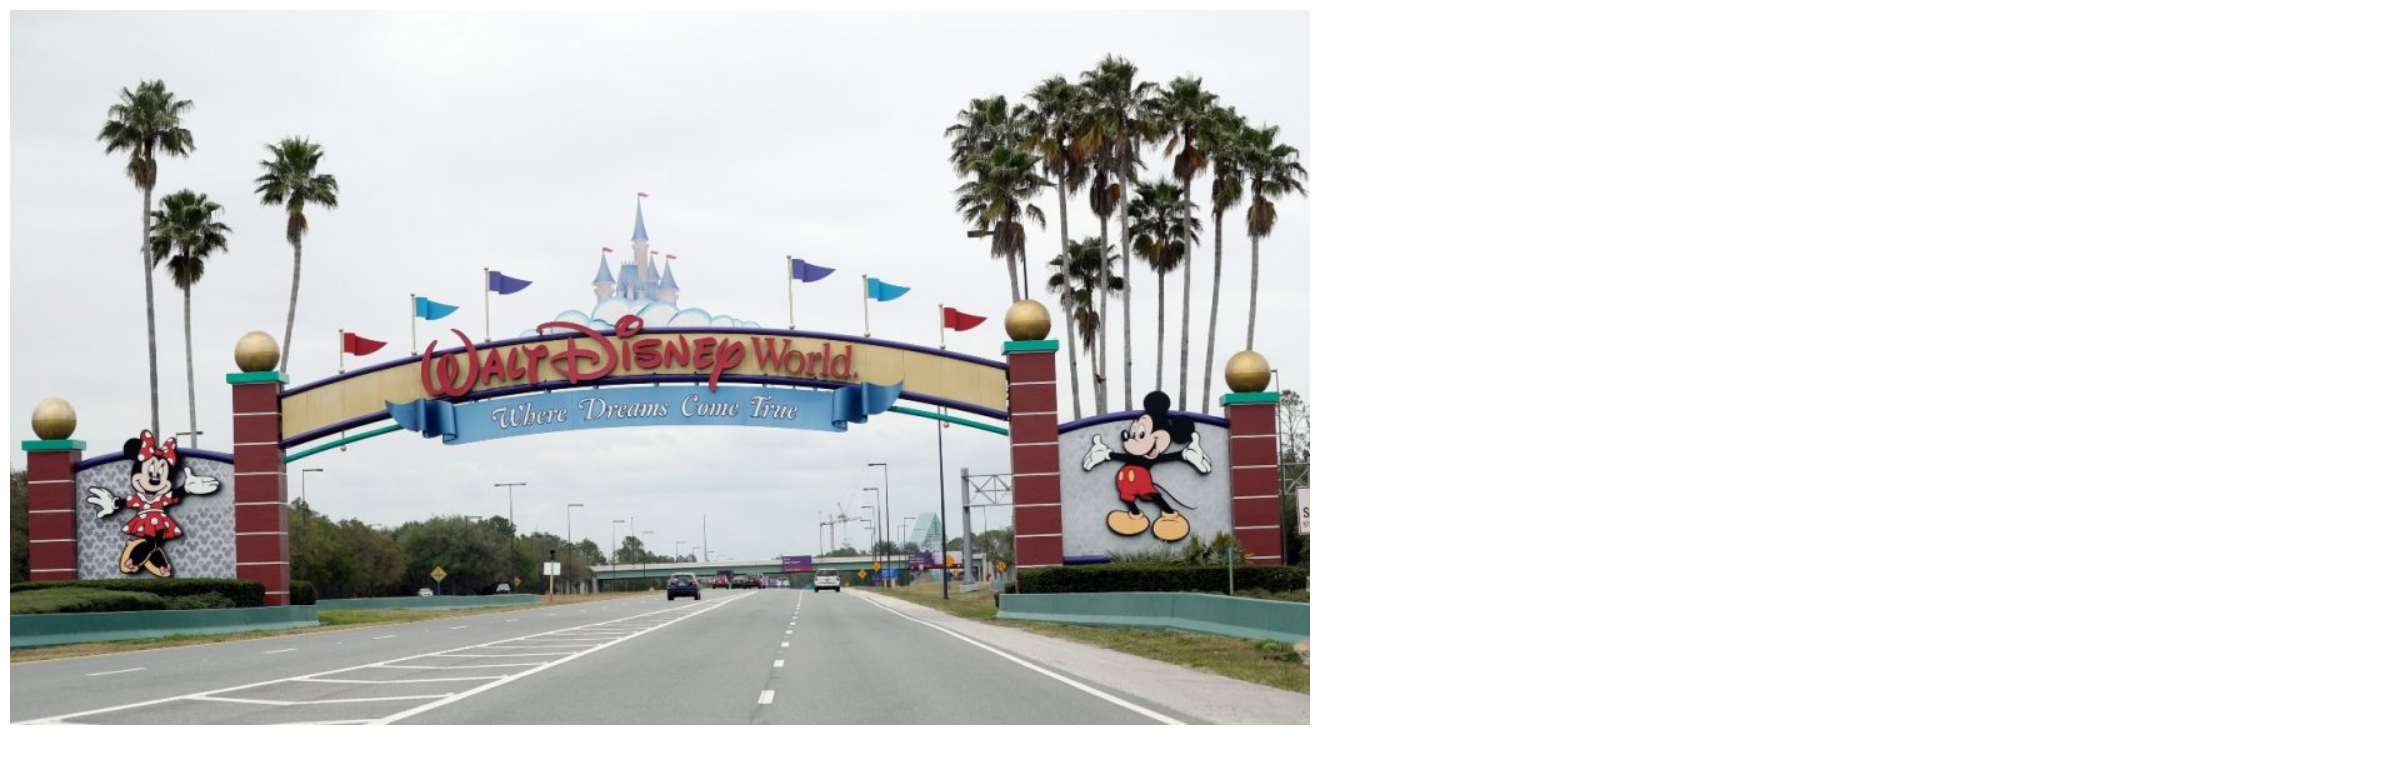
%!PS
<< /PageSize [2405 769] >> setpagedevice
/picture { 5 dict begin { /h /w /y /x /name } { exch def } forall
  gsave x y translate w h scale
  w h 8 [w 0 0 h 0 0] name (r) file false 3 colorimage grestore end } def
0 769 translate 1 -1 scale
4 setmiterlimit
1 setgray
0 0 2405 769 rectfill
(img1.rgb) 10 10 1300 715 picture
showpage
